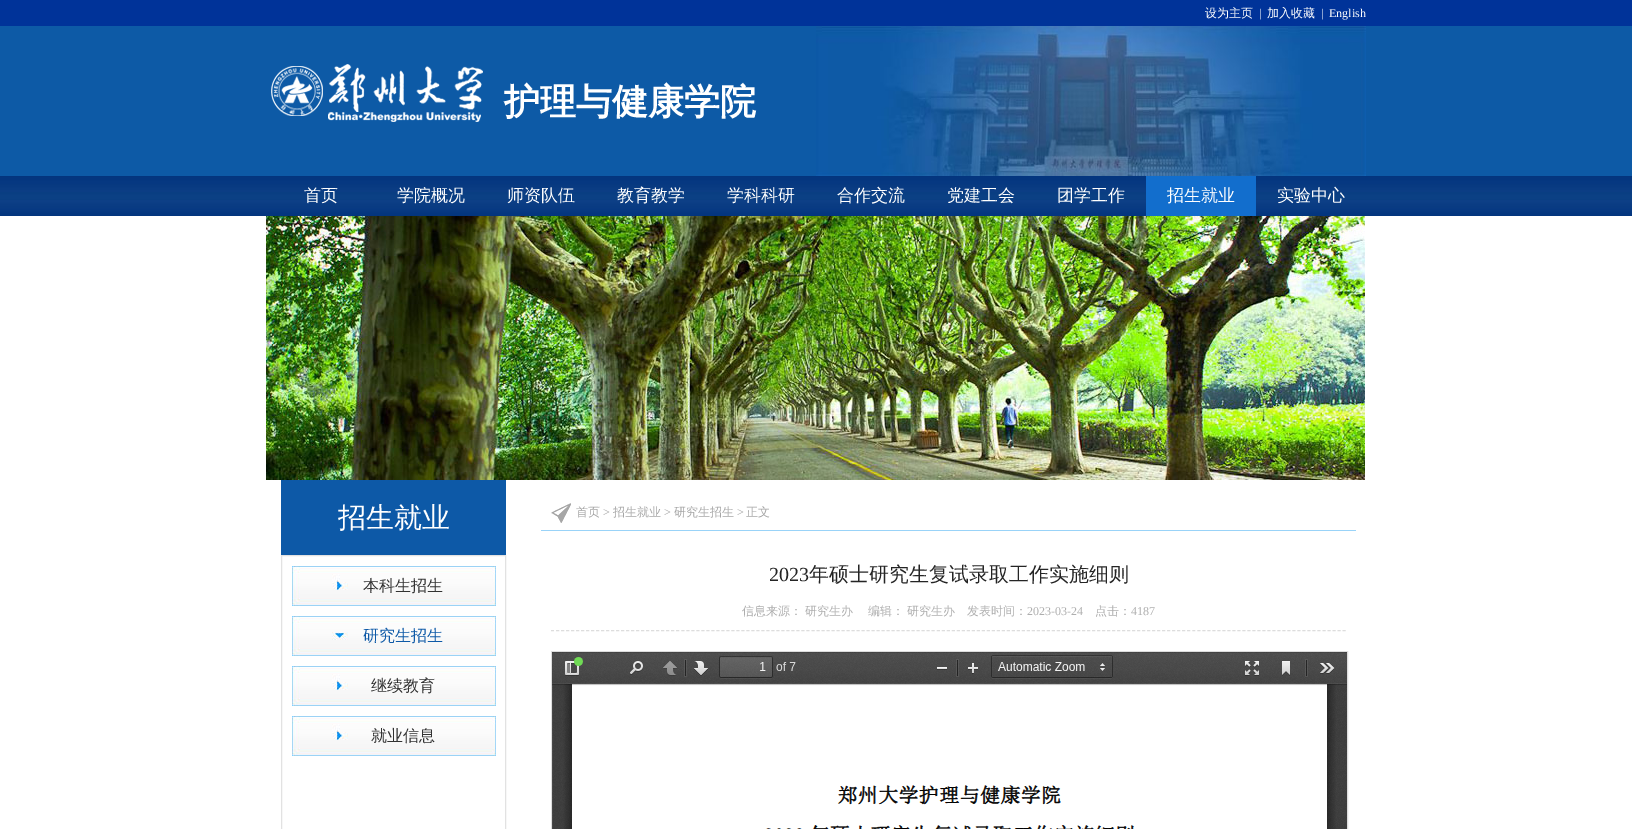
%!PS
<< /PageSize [1632 829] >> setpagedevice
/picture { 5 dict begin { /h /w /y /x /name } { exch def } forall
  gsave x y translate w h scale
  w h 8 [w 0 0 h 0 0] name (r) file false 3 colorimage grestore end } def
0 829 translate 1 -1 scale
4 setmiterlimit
1 setgray
0 0 1632 829 rectfill
0 0.2 0.6 setrgbcolor
0 0 1632 26 rectfill
/WenQuanYiZenHei-Medium [12 0 0 -12 0 0] selectfont
1 setgray
1205 17 moveto (设为主页) show
/LiberationSerif-Regular [12 0 0 -12 0 0] selectfont
1259 17 moveto (|) show
/WenQuanYiZenHei-Medium [12 0 0 -12 0 0] selectfont
1267 17 moveto (加入收藏) show
/LiberationSerif-Regular [12 0 0 -12 0 0] selectfont
1321 17 moveto (|) show
1329 17 moveto (English) show
0.051 0.353 0.651 setrgbcolor
0 26 1632 150 rectfill
(img1.rgb) 271 64 212 58 picture
/WenQuanYiZenHei-Bold [36 0 0 -36 0 0] selectfont
1 setgray
504 114 moveto (护理与健康学院) show
(img2.rgb) 816 26 550 150 picture
(img3.rgb) 0 176 1632 40 picture
/WenQuanYiZenHei-Medium [17 0 0 -17 0 0] selectfont
304 201 moveto (首页) show
397 201 moveto (学院概况) show
507 201 moveto (师资队伍) show
617 201 moveto (教育教学) show
727 201 moveto (学科科研) show
837 201 moveto (合作交流) show
947 201 moveto (党建工会) show
1057 201 moveto (团学工作) show
0.071 0.431 0.804 setrgbcolor
1146 176 110 40 rectfill
1 setgray
1167 201 moveto (招生就业) show
1277 201 moveto (实验中心) show
(img4.rgb) 266 216 1099 264 picture
0.051 0.349 0.655 setrgbcolor
281 480 225 75 rectfill
/WenQuanYiZenHei-Medium [28 0 0 -28 0 0] selectfont
1 setgray
338 527 moveto (招生就业) show
0.886 setgray
281.5 555.5 224 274 rectstroke
(img5.rgb) 292 566 204 40 picture
/WenQuanYiZenHei-Medium [16 0 0 -16 0 0] selectfont
0.196 setgray
363 591 moveto (本科生招生) show
(img6.rgb) 292 616 204 40 picture
0.051 0.349 0.655 setrgbcolor
363 641 moveto (研究生招生) show
(img5.rgb) 292 666 204 40 picture
0.196 setgray
371 691 moveto (继续教育) show
(img5.rgb) 292 716 204 40 picture
371 741 moveto (就业信息) show
(img7.rgb) 551 503 20 20 picture
0.6 0.827 0.973 setrgbcolor
541 530 815 1 rectfill
/WenQuanYiZenHei-Medium [12 0 0 -12 0 0] selectfont
0.651 setgray
576 516 moveto (首页) show
/LiberationSerif-Regular [12 0 0 -12 0 0] selectfont
603 516 moveto (>) show
/WenQuanYiZenHei-Medium [12 0 0 -12 0 0] selectfont
613 516 moveto (招生就业) show
/LiberationSerif-Regular [12 0 0 -12 0 0] selectfont
664 516 moveto (>) show
/WenQuanYiZenHei-Medium [12 0 0 -12 0 0] selectfont
674 516 moveto (研究生招生) show
/LiberationSerif-Regular [12 0 0 -12 0 0] selectfont
737 516 moveto (>) show
/WenQuanYiZenHei-Medium [12 0 0 -12 0 0] selectfont
746 516 moveto (正文) show
/LiberationSerif-Regular [20 0 0 -20 0 0] selectfont
0.145 setgray
769 581 moveto (2023) show
/WenQuanYiZenHei-Medium [20 0 0 -20 0 0] selectfont
809 581 moveto (年硕士研究生复试录取工作实施细则) show
0.867 setgray
[3 2.01] 0 setdash
newpath 551 630.5 moveto 1346 630.5 lineto stroke
/WenQuanYiZenHei-Medium [12 0 0 -12 0 0] selectfont
0.682 setgray
742 615 moveto (信息来源：) show
805 615 moveto (研究生办) show
868 615 moveto (编辑：) show
907 615 moveto (研究生办) show
967 615 moveto (发表时间：) show
/LiberationSerif-Regular [12 0 0 -12 0 0] selectfont
1027 615 moveto (2023-03-24) show
/WenQuanYiZenHei-Medium [12 0 0 -12 0 0] selectfont
1095 615 moveto (点击：) show
/LiberationSerif-Regular [12 0 0 -12 0 0] selectfont
1131 615 moveto (4187) show
0.867 setgray
[] 0 setdash
551.5 651.5 796 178 rectstroke
(img8.rgb) 552 652 795 177 picture
showpage
